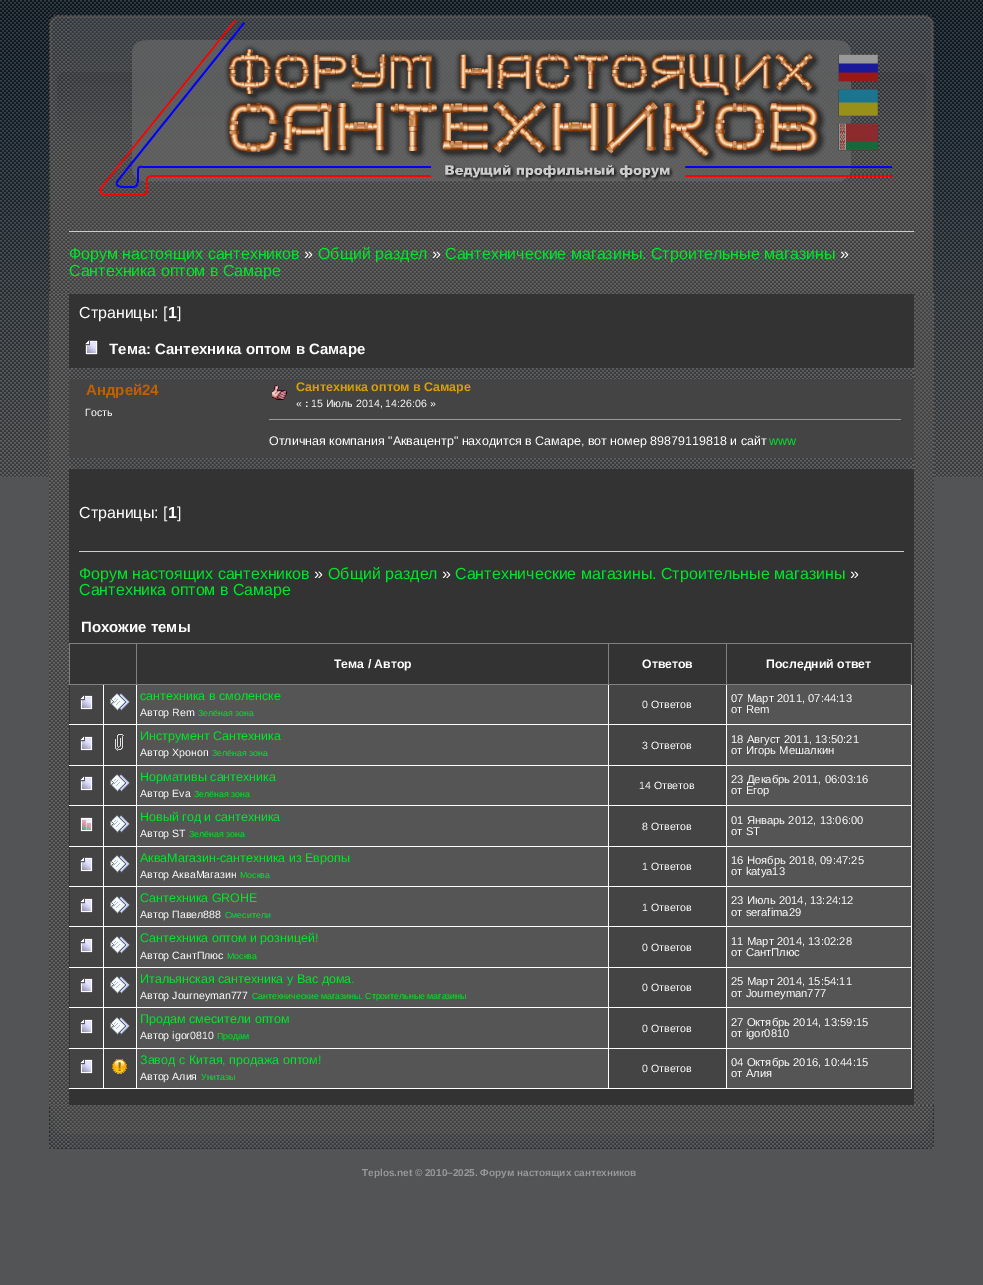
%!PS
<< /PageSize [983 1285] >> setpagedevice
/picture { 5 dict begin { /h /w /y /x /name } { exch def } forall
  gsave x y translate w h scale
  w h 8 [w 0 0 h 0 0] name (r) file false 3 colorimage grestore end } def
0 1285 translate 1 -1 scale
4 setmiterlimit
0.325 0.329 0.333 setrgbcolor
0 0 983 1285 rectfill
(img1.rgb) 0 0 983 477 picture
(img2.rgb) 49 15 20 279 picture
(img3.rgb) 69 15 865 279 picture
(img4.rgb) 99 20 793 176 picture
0.8 setgray
69 231 845 1 rectfill
/LiberationSans-Regular [16 0 0 -16 0 0] selectfont
0 0.898 0.169 setrgbcolor
69 259 moveto (Форум настоящих сантехников) show
1 setgray
304 259 moveto (») show
0 0.898 0.169 setrgbcolor
318 259 moveto (Общий раздел) show
1 setgray
432 259 moveto (») show
0 0.898 0.169 setrgbcolor
445 259 moveto (Сантехнические магазины. Строительные магазины) show
1 setgray
840 259 moveto (») show
0 0.898 0.169 setrgbcolor
69 276 moveto (Сантехника оптом в Самаре) show
(img5.rgb) 49 294 20 811 picture
(img6.rgb) 914 294 20 811 picture
0.2 setgray
69 294 845 811 rectfill
1 setgray
79 318 moveto (Страницы: [) show
/LiberationSans-Bold [16 0 0 -16 0 0] selectfont
168 318 moveto (1) show
/LiberationSans-Regular [16 0 0 -16 0 0] selectfont
177 318 moveto (]) show
(img7.rgb) 85 340 13 15 picture
/LiberationSans-Bold [15 0 0 -15 0 0] selectfont
109 354 moveto (Тема: Сантехника оптом в Самаре) show
0.267 setgray
69 379 845 79 rectfill
(img8.rgb) 69 368 20 11 picture
(img9.rgb) 89 368 825 11 picture
0.753 0.376 0.008 setrgbcolor
86 395 moveto (Андрей24) show
/LiberationSans-Regular [10.6 0 0 -10.6 0 0] selectfont
1 setgray
85 416 moveto (Гость) show
(img10.rgb) 272 385 15 15 picture
/LiberationSans-Bold [12.5 0 0 -12.5 0 0] selectfont
0.847 0.624 0.027 setrgbcolor
296 391 moveto (Сантехника оптом в Самаре) show
/LiberationSans-Regular [10.6 0 0 -10.6 0 0] selectfont
1 setgray
296 407 moveto («) show
/LiberationSans-Bold [10.6 0 0 -10.6 0 0] selectfont
305 407 moveto (:) show
/LiberationSans-Regular [10.6 0 0 -10.6 0 0] selectfont
311 407 moveto (15 Июль 2014, 14:26:06 ») show
0.6 0.6 0.667 setrgbcolor
269 419 632 1 rectfill
/LiberationSans-Regular [12.5 0 0 -12.5 0 0] selectfont
1 setgray
269 445 moveto (Отличная компания "Аквацентр" находится в Самаре, вот номер 89879119818 и сайт) show
0 0.898 0.169 setrgbcolor
769 445 moveto (www) show
(img11.rgb) 69 458 20 11 picture
(img12.rgb) 89 458 825 11 picture
/LiberationSans-Regular [16 0 0 -16 0 0] selectfont
1 setgray
79 518 moveto (Страницы: [) show
/LiberationSans-Bold [16 0 0 -16 0 0] selectfont
168 518 moveto (1) show
/LiberationSans-Regular [16 0 0 -16 0 0] selectfont
177 518 moveto (]) show
0.8 setgray
79 551 825 1 rectfill
0 0.898 0.169 setrgbcolor
79 579 moveto (Форум настоящих сантехников) show
1 setgray
314 579 moveto (») show
0 0.898 0.169 setrgbcolor
328 579 moveto (Общий раздел) show
1 setgray
442 579 moveto (») show
0 0.898 0.169 setrgbcolor
455 579 moveto (Сантехнические магазины. Строительные магазины) show
1 setgray
850 579 moveto (») show
0 0.898 0.169 setrgbcolor
79 595 moveto (Сантехника оптом в Самаре) show
/LiberationSans-Bold [15 0 0 -15 0 0] selectfont
1 setgray
81 632 moveto (Похожие темы) show
0.502 setgray
726 643 186 1 rectfill
1 setgray
911 684 1 405 rectfill
0.502 setgray
911 643 1 42 rectfill
1 setgray
726 1088 186 1 rectfill
726 1048 1 41 rectfill
726 1048 186 1 rectfill
726 1007 1 42 rectfill
726 1007 186 1 rectfill
726 967 1 41 rectfill
726 967 186 1 rectfill
726 926 1 42 rectfill
726 926 186 1 rectfill
726 886 1 41 rectfill
726 886 186 1 rectfill
726 846 1 41 rectfill
726 846 186 1 rectfill
726 805 1 42 rectfill
726 805 186 1 rectfill
726 765 1 41 rectfill
726 765 186 1 rectfill
726 724 1 42 rectfill
726 724 186 1 rectfill
726 684 1 41 rectfill
0.502 setgray
726 684 186 1 rectfill
726 643 1 42 rectfill
608 643 119 1 rectfill
1 setgray
608 1088 119 1 rectfill
608 1048 1 41 rectfill
608 1048 119 1 rectfill
608 1007 1 42 rectfill
608 1007 119 1 rectfill
608 967 1 41 rectfill
608 967 119 1 rectfill
608 926 1 42 rectfill
608 926 119 1 rectfill
608 886 1 41 rectfill
608 886 119 1 rectfill
608 846 1 41 rectfill
608 846 119 1 rectfill
608 805 1 42 rectfill
608 805 119 1 rectfill
608 765 1 41 rectfill
608 765 119 1 rectfill
608 724 1 42 rectfill
608 724 119 1 rectfill
608 684 1 41 rectfill
0.502 setgray
608 684 119 1 rectfill
608 643 1 42 rectfill
136 643 473 1 rectfill
1 setgray
136 1088 473 1 rectfill
136 1048 1 41 rectfill
136 1048 473 1 rectfill
136 1007 1 42 rectfill
136 1007 473 1 rectfill
136 967 1 41 rectfill
136 967 473 1 rectfill
136 926 1 42 rectfill
136 926 473 1 rectfill
136 886 1 41 rectfill
136 886 473 1 rectfill
136 846 1 41 rectfill
136 846 473 1 rectfill
136 805 1 42 rectfill
136 805 473 1 rectfill
136 765 1 41 rectfill
136 765 473 1 rectfill
136 724 1 42 rectfill
136 724 473 1 rectfill
136 684 1 41 rectfill
0.502 setgray
136 684 473 1 rectfill
136 643 1 42 rectfill
69 643 68 1 rectfill
1 setgray
103 1088 34 1 rectfill
103 1048 1 41 rectfill
103 1048 34 1 rectfill
103 1007 1 42 rectfill
103 1007 34 1 rectfill
103 967 1 41 rectfill
103 967 34 1 rectfill
103 926 1 42 rectfill
103 926 34 1 rectfill
103 886 1 41 rectfill
103 886 34 1 rectfill
103 846 1 41 rectfill
103 846 34 1 rectfill
103 805 1 42 rectfill
103 805 34 1 rectfill
103 765 1 41 rectfill
103 765 34 1 rectfill
103 724 1 42 rectfill
103 724 34 1 rectfill
103 684 1 41 rectfill
0.502 setgray
69 684 68 1 rectfill
69 643 1 42 rectfill
/LiberationSans-Bold [12.25 0 0 -12.25 0 0] selectfont
1 setgray
334 668 moveto (Тема / Автор) show
642 668 moveto (Ответов) show
766 668 moveto (Последний ответ) show
0.267 setgray
70 685 33 39 rectfill
1 setgray
69 724 35 1 rectfill
(img13.rgb) 80 695 13 15 picture
0.267 setgray
104 685 32 39 rectfill
(img14.rgb) 110 693 20 18 picture
0.333 setgray
137 685 471 39 rectfill
/LiberationSans-Regular [12.5 0 0 -12.5 0 0] selectfont
0 0.898 0.169 setrgbcolor
140 700 moveto (сантехника в смоленске) show
/LiberationSans-Regular [10.6 0 0 -10.6 0 0] selectfont
1 setgray
140 716 moveto (Автор Rem) show
/LiberationSans-Regular [8.8 0 0 -8.8 0 0] selectfont
0 0.898 0.169 setrgbcolor
198 716 moveto (Зелёная зона) show
0.267 setgray
609 685 117 39 rectfill
/LiberationSans-Regular [10.6 0 0 -10.6 0 0] selectfont
1 setgray
642 708 moveto (0 Ответов) show
0.333 setgray
727 685 184 39 rectfill
/LiberationSans-Regular [11.25 0 0 -11.25 0 0] selectfont
1 setgray
731 702 moveto (07 Март 2011, 07:44:13) show
731 713 moveto (от Rem) show
0.267 setgray
70 725 33 40 rectfill
1 setgray
69 765 35 1 rectfill
(img13.rgb) 80 736 13 15 picture
0.267 setgray
104 725 32 40 rectfill
(img15.rgb) 115 734 9 17 picture
0.333 setgray
137 725 471 40 rectfill
/LiberationSans-Regular [12.5 0 0 -12.5 0 0] selectfont
0 0.898 0.169 setrgbcolor
140 740 moveto (Инструмент Сантехника) show
/LiberationSans-Regular [10.6 0 0 -10.6 0 0] selectfont
1 setgray
140 756 moveto (Автор Хроноп) show
/LiberationSans-Regular [8.8 0 0 -8.8 0 0] selectfont
0 0.898 0.169 setrgbcolor
212 756 moveto (Зелёная зона) show
0.267 setgray
609 725 117 40 rectfill
/LiberationSans-Regular [10.6 0 0 -10.6 0 0] selectfont
1 setgray
642 749 moveto (3 Ответов) show
0.333 setgray
727 725 184 40 rectfill
/LiberationSans-Regular [11.25 0 0 -11.25 0 0] selectfont
1 setgray
731 743 moveto (18 Август 2011, 13:50:21) show
731 754 moveto (от Игорь Мешалкин) show
0.267 setgray
70 766 33 39 rectfill
1 setgray
69 805 35 1 rectfill
(img13.rgb) 80 776 13 15 picture
0.267 setgray
104 766 32 39 rectfill
(img14.rgb) 110 774 20 18 picture
0.333 setgray
137 766 471 39 rectfill
/LiberationSans-Regular [12.5 0 0 -12.5 0 0] selectfont
0 0.898 0.169 setrgbcolor
140 781 moveto (Нормативы сантехника) show
/LiberationSans-Regular [10.6 0 0 -10.6 0 0] selectfont
1 setgray
140 797 moveto (Автор Eva) show
/LiberationSans-Regular [8.8 0 0 -8.8 0 0] selectfont
0 0.898 0.169 setrgbcolor
194 797 moveto (Зелёная зона) show
0.267 setgray
609 766 117 39 rectfill
/LiberationSans-Regular [10.6 0 0 -10.6 0 0] selectfont
1 setgray
639 789 moveto (14 Ответов) show
0.333 setgray
727 766 184 39 rectfill
/LiberationSans-Regular [11.25 0 0 -11.25 0 0] selectfont
1 setgray
731 783 moveto (23 Декабрь 2011, 06:03:16) show
731 794 moveto (от Егор) show
0.267 setgray
70 806 33 40 rectfill
1 setgray
69 846 35 1 rectfill
(img16.rgb) 80 817 13 15 picture
0.267 setgray
104 806 32 40 rectfill
(img14.rgb) 110 815 20 18 picture
0.333 setgray
137 806 471 40 rectfill
/LiberationSans-Regular [12.5 0 0 -12.5 0 0] selectfont
0 0.898 0.169 setrgbcolor
140 821 moveto (Новый год и сантехника) show
/LiberationSans-Regular [10.6 0 0 -10.6 0 0] selectfont
1 setgray
140 837 moveto (Автор ST) show
/LiberationSans-Regular [8.8 0 0 -8.8 0 0] selectfont
0 0.898 0.169 setrgbcolor
189 837 moveto (Зелёная зона) show
0.267 setgray
609 806 117 40 rectfill
/LiberationSans-Regular [10.6 0 0 -10.6 0 0] selectfont
1 setgray
642 830 moveto (8 Ответов) show
0.333 setgray
727 806 184 40 rectfill
/LiberationSans-Regular [11.25 0 0 -11.25 0 0] selectfont
1 setgray
731 824 moveto (01 Январь 2012, 13:06:00) show
731 835 moveto (от ST) show
0.267 setgray
70 847 33 39 rectfill
1 setgray
69 886 35 1 rectfill
(img13.rgb) 80 857 13 15 picture
0.267 setgray
104 847 32 39 rectfill
(img14.rgb) 110 855 20 18 picture
0.333 setgray
137 847 471 39 rectfill
/LiberationSans-Regular [12.5 0 0 -12.5 0 0] selectfont
0 0.898 0.169 setrgbcolor
140 862 moveto (АкваМагазин-сантехника из Европы) show
/LiberationSans-Regular [10.6 0 0 -10.6 0 0] selectfont
1 setgray
140 878 moveto (Автор АкваМагазин) show
/LiberationSans-Regular [8.8 0 0 -8.8 0 0] selectfont
0 0.898 0.169 setrgbcolor
240 878 moveto (Москва) show
0.267 setgray
609 847 117 39 rectfill
/LiberationSans-Regular [10.6 0 0 -10.6 0 0] selectfont
1 setgray
642 870 moveto (1 Ответов) show
0.333 setgray
727 847 184 39 rectfill
/LiberationSans-Regular [11.25 0 0 -11.25 0 0] selectfont
1 setgray
731 864 moveto (16 Ноябрь 2018, 09:47:25) show
731 875 moveto (от katya13) show
0.267 setgray
70 887 33 39 rectfill
1 setgray
69 926 35 1 rectfill
(img13.rgb) 80 898 13 15 picture
0.267 setgray
104 887 32 39 rectfill
(img14.rgb) 110 896 20 18 picture
0.333 setgray
137 887 471 39 rectfill
/LiberationSans-Regular [12.5 0 0 -12.5 0 0] selectfont
0 0.898 0.169 setrgbcolor
140 902 moveto (Сантехника GROHE) show
/LiberationSans-Regular [10.6 0 0 -10.6 0 0] selectfont
1 setgray
140 918 moveto (Автор Павел888) show
/LiberationSans-Regular [8.8 0 0 -8.8 0 0] selectfont
0 0.898 0.169 setrgbcolor
225 918 moveto (Смесители) show
0.267 setgray
609 887 117 39 rectfill
/LiberationSans-Regular [10.6 0 0 -10.6 0 0] selectfont
1 setgray
642 911 moveto (1 Ответов) show
0.333 setgray
727 887 184 39 rectfill
/LiberationSans-Regular [11.25 0 0 -11.25 0 0] selectfont
1 setgray
731 904 moveto (23 Июль 2014, 13:24:12) show
731 916 moveto (от serafima29) show
0.267 setgray
70 927 33 40 rectfill
1 setgray
69 967 35 1 rectfill
(img13.rgb) 80 938 13 15 picture
0.267 setgray
104 927 32 40 rectfill
(img14.rgb) 110 936 20 18 picture
0.333 setgray
137 927 471 40 rectfill
/LiberationSans-Regular [12.5 0 0 -12.5 0 0] selectfont
0 0.898 0.169 setrgbcolor
140 942 moveto (Сантехника оптом и розницей!) show
/LiberationSans-Regular [10.6 0 0 -10.6 0 0] selectfont
1 setgray
140 959 moveto (Автор СантПлюс) show
/LiberationSans-Regular [8.8 0 0 -8.8 0 0] selectfont
0 0.898 0.169 setrgbcolor
227 959 moveto (Москва) show
0.267 setgray
609 927 117 40 rectfill
/LiberationSans-Regular [10.6 0 0 -10.6 0 0] selectfont
1 setgray
642 951 moveto (0 Ответов) show
0.333 setgray
727 927 184 40 rectfill
/LiberationSans-Regular [11.25 0 0 -11.25 0 0] selectfont
1 setgray
731 945 moveto (11 Март 2014, 13:02:28) show
731 956 moveto (от СантПлюс) show
0.267 setgray
70 968 33 39 rectfill
1 setgray
69 1007 35 1 rectfill
(img13.rgb) 80 978 13 15 picture
0.267 setgray
104 968 32 39 rectfill
(img14.rgb) 110 976 20 18 picture
0.333 setgray
137 968 471 39 rectfill
/LiberationSans-Regular [12.5 0 0 -12.5 0 0] selectfont
0 0.898 0.169 setrgbcolor
140 983 moveto (Итальянская сантехника у Вас дома.) show
/LiberationSans-Regular [10.6 0 0 -10.6 0 0] selectfont
1 setgray
140 999 moveto (Автор Journeyman777) show
/LiberationSans-Regular [8.8 0 0 -8.8 0 0] selectfont
0 0.898 0.169 setrgbcolor
252 999 moveto (Сантехнические магазины. Строительные магазины) show
0.267 setgray
609 968 117 39 rectfill
/LiberationSans-Regular [10.6 0 0 -10.6 0 0] selectfont
1 setgray
642 991 moveto (0 Ответов) show
0.333 setgray
727 968 184 39 rectfill
/LiberationSans-Regular [11.25 0 0 -11.25 0 0] selectfont
1 setgray
731 985 moveto (25 Март 2014, 15:54:11) show
731 997 moveto (от Journeyman777) show
0.267 setgray
70 1008 33 40 rectfill
1 setgray
69 1048 35 1 rectfill
(img13.rgb) 80 1019 13 15 picture
0.267 setgray
104 1008 32 40 rectfill
(img14.rgb) 110 1017 20 18 picture
0.333 setgray
137 1008 471 40 rectfill
/LiberationSans-Regular [12.5 0 0 -12.5 0 0] selectfont
0 0.898 0.169 setrgbcolor
140 1023 moveto (Продам смесители оптом) show
/LiberationSans-Regular [10.6 0 0 -10.6 0 0] selectfont
1 setgray
140 1039 moveto (Автор igor0810) show
/LiberationSans-Regular [8.8 0 0 -8.8 0 0] selectfont
0 0.898 0.169 setrgbcolor
217 1039 moveto (Продам) show
0.267 setgray
609 1008 117 40 rectfill
/LiberationSans-Regular [10.6 0 0 -10.6 0 0] selectfont
1 setgray
642 1032 moveto (0 Ответов) show
0.333 setgray
727 1008 184 40 rectfill
/LiberationSans-Regular [11.25 0 0 -11.25 0 0] selectfont
1 setgray
731 1026 moveto (27 Октябрь 2014, 13:59:15) show
731 1037 moveto (от igor0810) show
0.267 setgray
70 1049 33 39 rectfill
1 setgray
69 1088 35 1 rectfill
(img13.rgb) 80 1059 13 15 picture
0.267 setgray
104 1049 32 39 rectfill
(img17.rgb) 112 1059 15 15 picture
0.333 setgray
137 1049 471 39 rectfill
/LiberationSans-Regular [12.5 0 0 -12.5 0 0] selectfont
0 0.898 0.169 setrgbcolor
140 1064 moveto (Завод с Китая, продажа оптом!) show
/LiberationSans-Regular [10.6 0 0 -10.6 0 0] selectfont
1 setgray
140 1080 moveto (Автор Алия) show
/LiberationSans-Regular [8.8 0 0 -8.8 0 0] selectfont
0 0.898 0.169 setrgbcolor
201 1080 moveto (Унитазы) show
0.267 setgray
609 1049 117 39 rectfill
/LiberationSans-Regular [10.6 0 0 -10.6 0 0] selectfont
1 setgray
642 1072 moveto (0 Ответов) show
0.333 setgray
727 1049 184 39 rectfill
/LiberationSans-Regular [11.25 0 0 -11.25 0 0] selectfont
1 setgray
731 1066 moveto (04 Октябрь 2016, 10:44:15) show
731 1077 moveto (от Алия) show
(img18.rgb) 49 1105 20 44 picture
(img19.rgb) 69 1105 865 44 picture
/LiberationSans-Bold [10 0 0 -10 0 0] selectfont
0.6 setgray
362 1176 moveto (Teplos.net © 2010–2025. Форум настоящих сантехников) show
showpage
